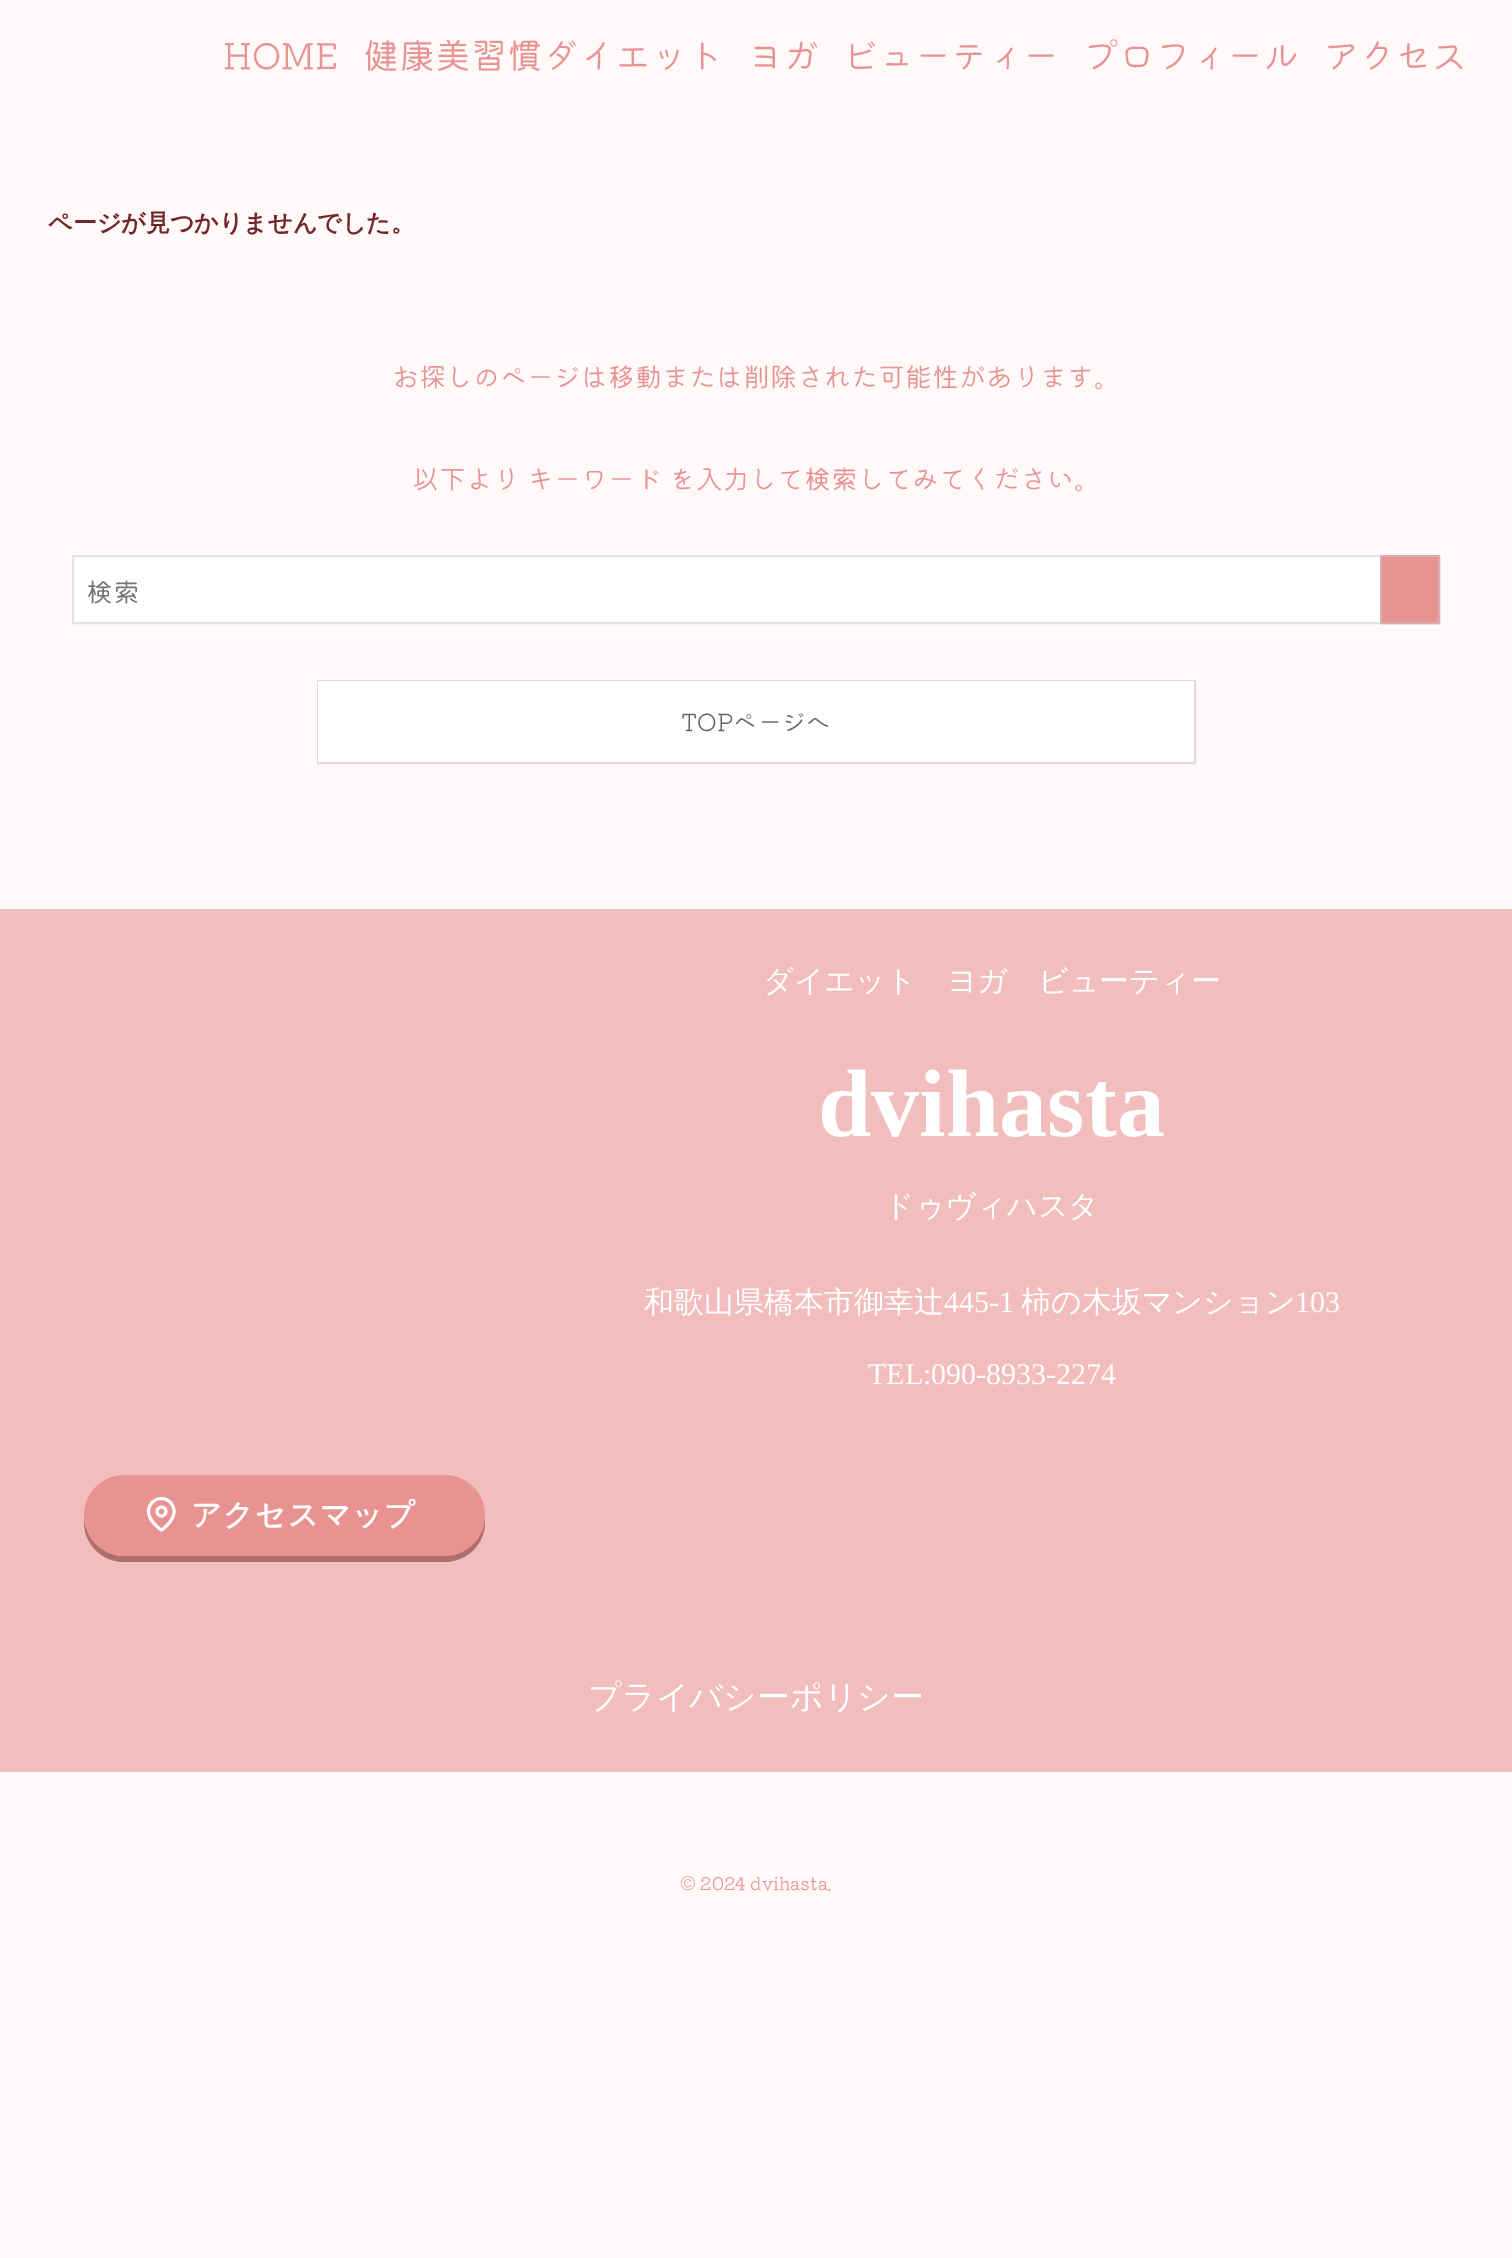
%!PS
<< /PageSize [1512 2258] >> setpagedevice
/roundrect { 5 dict begin { /r /h /w /y /x } { exch def } forall
  x r add y moveto x w add y 2 copy h add r arct x w add y h add x 1 index r arct
  x y h add x y r arct x y 2 copy exch w add exch r arct closepath end } def
0 2258 translate 1 -1 scale
4 setmiterlimit
1 0.976 0.976 setrgbcolor
0 0 1512 2258 rectfill
/KiwiMaru-Light [36 0 0 -36 0 0] selectfont
0.91 0.573 0.573 setrgbcolor
223 69 moveto (HOME) show
363 69 moveto (健康美習慣ダイエット) show
747 69 moveto (ヨガ) show
843 69 moveto (ビューティー) show
1083 69 moveto (プロフィール) show
1323 69 moveto (アクセス) show
/WenQuanYiZenHei-Bold [24 0 0 -24 0 0] selectfont
0.443 0.149 0.157 setrgbcolor
48 231 moveto (ページが見つかりませんでした。) show
/KiwiMaru-Light [27 0 0 -27 0 0] selectfont
0.91 0.573 0.573 setrgbcolor
392 387 moveto (お探しのページは移動または削除された可能性があります。) show
412 489 moveto (以下より キーワード を入力して検索してみてください。) show
1 setgray
74 557 1306 65 rectfill
0.89 setgray
2 setlinewidth
73 556 1366 67 rectstroke
0.459 setgray
86 602 moveto (検索) show
0.91 0.573 0.573 setrgbcolor
newpath 1381 556 moveto 1439 556 lineto 1439 623 lineto 1381 623 lineto closepath gsave fill grestore
0.847 0.678 0.678 setrgbcolor
stroke
0.863 setgray
318 681 877 82 rectstroke
1 setgray
318 681 876 81 rectfill
/KiwiMaru-Light [24.25 0 0 -24.25 0 0] selectfont
0.4 setgray
681 731 moveto (TOPページへ) show
0.949 0.741 0.741 setrgbcolor
0 909 1512 863 rectfill
/WenQuanYiZenHei-Medium [30 0 0 -30 0 0] selectfont
1 setgray
763 991 moveto (ダイエット　ヨガ　ビューティー) show
/LiberationSerif-Bold [96 0 0 -96 0 0] selectfont
818 1136 moveto (dvihasta) show
/WenQuanYiZenHei-Medium [30 0 0 -30 0 0] selectfont
884 1216 moveto (ドゥヴィハスタ) show
644 1312 moveto (和歌山県橋本市御幸辻) show
/LiberationSerif-Regular [30 0 0 -30 0 0] selectfont
944 1312 moveto (445-1) show
/WenQuanYiZenHei-Medium [30 0 0 -30 0 0] selectfont
1021 1312 moveto (柿の木坂マンション) show
/LiberationSerif-Regular [30 0 0 -30 0 0] selectfont
1295 1312 moveto (103) show
868 1384 moveto (TEL:090-8933-2274) show
0.682 0.431 0.431 setrgbcolor
newpath 84 1518 moveto 84 1522 lineto 84 1544 102 1562 124 1562 curveto 444 1562 lineto 467 1562 485 1544 485 1522 curveto 484 1515 lineto 484 1537 466 1556 444 1556 curveto 124 1556 lineto 103 1556 86 1539 84 1518 curveto closepath fill
0.91 0.573 0.573 setrgbcolor
84 1475 401 81 40.5 roundrect fill
1 setgray
2.9 setlinewidth
1 setlinecap
1 setlinejoin
newpath 174 1511.5 moveto 174 1521.5 161.5 1530 161.5 1530 curveto 161.5 1530 148.5 1521.5 148.5 1511.5 curveto 148.5 1504 154 1498.5 161.5 1498.5 curveto 168.5 1498.5 174 1504 174 1511.5 curveto closepath stroke
0 setlinecap
0 setlinejoin
newpath 161.5 1511.5 4.5 0 360 arc closepath stroke
/WenQuanYiZenHei-Bold [30 0 0 -30 0 0] selectfont
191 1525 moveto 1.5 0 (アクセスマップ) ashow
/WenQuanYiZenHei-Medium [33 0 0 -33 0 0] selectfont
588 1708 moveto (プライバシーポリシー) show
/KiwiMaru-Light [18 0 0 -18 0 0] selectfont
0.91 0.573 0.573 setrgbcolor
680 1890 moveto (© 2024 dvihasta.) show
showpage
